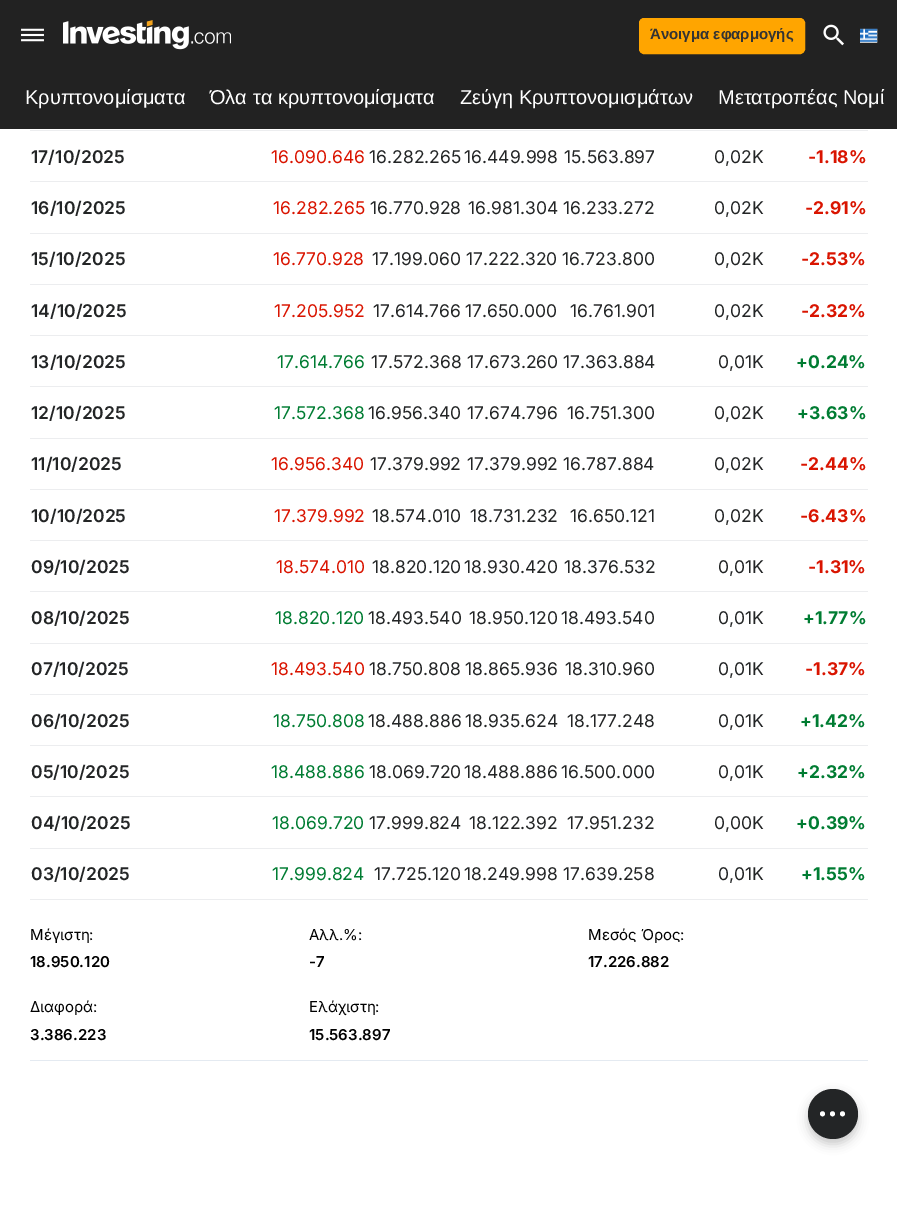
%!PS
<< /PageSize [897 1228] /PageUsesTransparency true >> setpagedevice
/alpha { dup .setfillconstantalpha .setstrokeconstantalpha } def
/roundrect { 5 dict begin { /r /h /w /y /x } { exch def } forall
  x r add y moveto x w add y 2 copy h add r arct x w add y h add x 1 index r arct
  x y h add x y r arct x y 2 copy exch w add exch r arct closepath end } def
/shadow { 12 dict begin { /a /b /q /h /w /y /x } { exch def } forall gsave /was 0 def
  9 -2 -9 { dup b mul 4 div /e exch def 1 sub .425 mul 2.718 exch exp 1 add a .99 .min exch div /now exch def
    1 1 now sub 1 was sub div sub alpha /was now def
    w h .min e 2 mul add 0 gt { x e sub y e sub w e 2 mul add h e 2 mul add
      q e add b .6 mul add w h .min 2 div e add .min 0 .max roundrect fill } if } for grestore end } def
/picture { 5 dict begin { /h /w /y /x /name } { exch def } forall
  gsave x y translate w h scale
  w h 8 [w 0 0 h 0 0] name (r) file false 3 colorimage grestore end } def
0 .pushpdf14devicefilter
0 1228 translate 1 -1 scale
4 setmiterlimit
1 setgray
0 0 897 1228 rectfill
0.133 setgray
0 0 897 129 rectfill
(img1.rgb) 21 28 23 14 picture
(img2.rgb) 63 20 168 30 picture
1 0.647 0 setrgbcolor
639.5 18.5 165 35 4.5 roundrect gsave fill grestore
stroke
/LiberationSans-Bold [15 0 0 -15 0 0] selectfont
0.2 setgray
650 39 moveto (Άνοιγμα εφαρμογής) show
(img3.rgb) 823 24 21 22 picture
(img4.rgb) 860 28 18 15 picture
/LiberationSans-Regular [20 0 0 -20 0 0] selectfont
1 setgray
25 104 moveto (Κρυπτονομίσματα) show
210 104 moveto (Όλα τα κρυπτονομίσματα) show
460 104 moveto (Ζεύγη Κρυπτονομισμάτων) show
718 104 moveto (Μετατροπέας Νομί) show
0.925 0.929 0.937 setrgbcolor
30 130 838 1 rectfill
/Inter-SemiBold [17.5 0 0 -17.5 0 0] selectfont
0.137 0.145 0.149 setrgbcolor
31 163 moveto (17/10/2025) show
/Inter-Regular [17.5 0 0 -17.5 0 0] selectfont
0.851 0.078 0 setrgbcolor
271 163 moveto (16.090.646) show
0.137 0.145 0.149 setrgbcolor
369 163 moveto (16.282.265) show
464 163 moveto (16.449.998) show
564 163 moveto (15.563.897) show
714 163 moveto (0,02K) show
/Inter-Bold [17.5 0 0 -17.5 0 0] selectfont
0.851 0.078 0 setrgbcolor
808 163 moveto (-1.18%) show
0.925 0.929 0.937 setrgbcolor
30 181 838 1 rectfill
/Inter-SemiBold [17.5 0 0 -17.5 0 0] selectfont
0.137 0.145 0.149 setrgbcolor
31 214 moveto (16/10/2025) show
/Inter-Regular [17.5 0 0 -17.5 0 0] selectfont
0.851 0.078 0 setrgbcolor
273 214 moveto (16.282.265) show
0.137 0.145 0.149 setrgbcolor
370 214 moveto (16.770.928) show
468 214 moveto (16.981.304) show
563 214 moveto (16.233.272) show
714 214 moveto (0,02K) show
/Inter-Bold [17.5 0 0 -17.5 0 0] selectfont
0.851 0.078 0 setrgbcolor
805 214 moveto (-2.91%) show
0.925 0.929 0.937 setrgbcolor
30 233 838 1 rectfill
/Inter-SemiBold [17.5 0 0 -17.5 0 0] selectfont
0.137 0.145 0.149 setrgbcolor
31 265 moveto (15/10/2025) show
/Inter-Regular [17.5 0 0 -17.5 0 0] selectfont
0.851 0.078 0 setrgbcolor
273 265 moveto (16.770.928) show
0.137 0.145 0.149 setrgbcolor
372 265 moveto (17.199.060 17.222.320 16.723.800) show
714 265 moveto (0,02K) show
/Inter-Bold [17.5 0 0 -17.5 0 0] selectfont
0.851 0.078 0 setrgbcolor
801 265 moveto (-2.53%) show
0.925 0.929 0.937 setrgbcolor
30 284 838 1 rectfill
/Inter-SemiBold [17.5 0 0 -17.5 0 0] selectfont
0.137 0.145 0.149 setrgbcolor
31 317 moveto (14/10/2025) show
/Inter-Regular [17.5 0 0 -17.5 0 0] selectfont
0.851 0.078 0 setrgbcolor
274 317 moveto (17.205.952) show
0.137 0.145 0.149 setrgbcolor
373 317 moveto (17.614.766) show
465 317 moveto (17.650.000) show
570 317 moveto (16.761.901) show
714 317 moveto (0,02K) show
/Inter-Bold [17.5 0 0 -17.5 0 0] selectfont
0.851 0.078 0 setrgbcolor
801 317 moveto (-2.32%) show
0.925 0.929 0.937 setrgbcolor
30 335 838 1 rectfill
/Inter-SemiBold [17.5 0 0 -17.5 0 0] selectfont
0.137 0.145 0.149 setrgbcolor
31 368 moveto (13/10/2025) show
/Inter-Regular [17.5 0 0 -17.5 0 0] selectfont
0 0.486 0.196 setrgbcolor
277 368 moveto (17.614.766) show
0.137 0.145 0.149 setrgbcolor
371 368 moveto (17.572.368) show
467 368 moveto (17.673.260 17.363.884) show
718 368 moveto (0,01K) show
/Inter-Bold [17.5 0 0 -17.5 0 0] selectfont
0 0.486 0.196 setrgbcolor
796 368 moveto (+0.24%) show
0.925 0.929 0.937 setrgbcolor
30 386 838 1 rectfill
/Inter-SemiBold [17.5 0 0 -17.5 0 0] selectfont
0.137 0.145 0.149 setrgbcolor
31 419 moveto (12/10/2025) show
/Inter-Regular [17.5 0 0 -17.5 0 0] selectfont
0 0.486 0.196 setrgbcolor
274 419 moveto (17.572.368) show
0.137 0.145 0.149 setrgbcolor
368 419 moveto (16.956.340) show
467 419 moveto (17.674.796) show
567 419 moveto (16.751.300) show
714 419 moveto (0,02K) show
/Inter-Bold [17.5 0 0 -17.5 0 0] selectfont
0 0.486 0.196 setrgbcolor
797 419 moveto (+3.63%) show
0.925 0.929 0.937 setrgbcolor
30 438 838 1 rectfill
/Inter-SemiBold [17.5 0 0 -17.5 0 0] selectfont
0.137 0.145 0.149 setrgbcolor
31 470 moveto (11/10/2025) show
/Inter-Regular [17.5 0 0 -17.5 0 0] selectfont
0.851 0.078 0 setrgbcolor
271 470 moveto (16.956.340) show
0.137 0.145 0.149 setrgbcolor
370 470 moveto (17.379.992) show
467 470 moveto (17.379.992) show
563 470 moveto (16.787.884) show
714 470 moveto (0,02K) show
/Inter-Bold [17.5 0 0 -17.5 0 0] selectfont
0.851 0.078 0 setrgbcolor
800 470 moveto (-2.44%) show
0.925 0.929 0.937 setrgbcolor
30 489 838 1 rectfill
/Inter-SemiBold [17.5 0 0 -17.5 0 0] selectfont
0.137 0.145 0.149 setrgbcolor
31 522 moveto (10/10/2025) show
/Inter-Regular [17.5 0 0 -17.5 0 0] selectfont
0.851 0.078 0 setrgbcolor
274 522 moveto (17.379.992) show
0.137 0.145 0.149 setrgbcolor
372 522 moveto (18.574.010) show
470 522 moveto (18.731.232) show
570 522 moveto (16.650.121) show
714 522 moveto (0,02K) show
/Inter-Bold [17.5 0 0 -17.5 0 0] selectfont
0.851 0.078 0 setrgbcolor
800 522 moveto (-6.43%) show
0.925 0.929 0.937 setrgbcolor
30 540 838 1 rectfill
/Inter-SemiBold [17.5 0 0 -17.5 0 0] selectfont
0.137 0.145 0.149 setrgbcolor
31 573 moveto (09/10/2025) show
/Inter-Regular [17.5 0 0 -17.5 0 0] selectfont
0.851 0.078 0 setrgbcolor
276 573 moveto (18.574.010) show
0.137 0.145 0.149 setrgbcolor
372 573 moveto (18.820.120) show
464 573 moveto (18.930.420) show
564 573 moveto (18.376.532) show
718 573 moveto (0,01K) show
/Inter-Bold [17.5 0 0 -17.5 0 0] selectfont
0.851 0.078 0 setrgbcolor
808 573 moveto (-1.31%) show
0.925 0.929 0.937 setrgbcolor
30 591 838 1 rectfill
/Inter-SemiBold [17.5 0 0 -17.5 0 0] selectfont
0.137 0.145 0.149 setrgbcolor
31 624 moveto (08/10/2025) show
/Inter-Regular [17.5 0 0 -17.5 0 0] selectfont
0 0.486 0.196 setrgbcolor
275 624 moveto (18.820.120) show
0.137 0.145 0.149 setrgbcolor
368 624 moveto (18.493.540) show
469 624 moveto (18.950.120) show
561 624 moveto (18.493.540) show
718 624 moveto (0,01K) show
/Inter-Bold [17.5 0 0 -17.5 0 0] selectfont
0 0.486 0.196 setrgbcolor
803 624 moveto (+1.77%) show
0.925 0.929 0.937 setrgbcolor
30 643 838 1 rectfill
/Inter-SemiBold [17.5 0 0 -17.5 0 0] selectfont
0.137 0.145 0.149 setrgbcolor
31 675 moveto (07/10/2025) show
/Inter-Regular [17.5 0 0 -17.5 0 0] selectfont
0.851 0.078 0 setrgbcolor
271 675 moveto (18.493.540) show
0.137 0.145 0.149 setrgbcolor
369 675 moveto (18.750.808) show
465 675 moveto (18.865.936) show
565 675 moveto (18.310.960) show
718 675 moveto (0,01K) show
/Inter-Bold [17.5 0 0 -17.5 0 0] selectfont
0.851 0.078 0 setrgbcolor
805 675 moveto (-1.37%) show
0.925 0.929 0.937 setrgbcolor
30 694 838 1 rectfill
/Inter-SemiBold [17.5 0 0 -17.5 0 0] selectfont
0.137 0.145 0.149 setrgbcolor
31 727 moveto (06/10/2025) show
/Inter-Regular [17.5 0 0 -17.5 0 0] selectfont
0 0.486 0.196 setrgbcolor
273 727 moveto (18.750.808) show
0.137 0.145 0.149 setrgbcolor
368 727 moveto (18.488.886) show
465 727 moveto (18.935.624) show
567 727 moveto (18.177.248) show
718 727 moveto (0,01K) show
/Inter-Bold [17.5 0 0 -17.5 0 0] selectfont
0 0.486 0.196 setrgbcolor
800 727 moveto (+1.42%) show
0.925 0.929 0.937 setrgbcolor
30 745 838 1 rectfill
/Inter-SemiBold [17.5 0 0 -17.5 0 0] selectfont
0.137 0.145 0.149 setrgbcolor
31 778 moveto (05/10/2025) show
/Inter-Regular [17.5 0 0 -17.5 0 0] selectfont
0 0.486 0.196 setrgbcolor
271 778 moveto (18.488.886) show
0.137 0.145 0.149 setrgbcolor
369 778 moveto (18.069.720) show
464 778 moveto (18.488.886) show
561 778 moveto (16.500.000) show
718 778 moveto (0,01K) show
/Inter-Bold [17.5 0 0 -17.5 0 0] selectfont
0 0.486 0.196 setrgbcolor
797 778 moveto (+2.32%) show
0.925 0.929 0.937 setrgbcolor
30 796 838 1 rectfill
/Inter-SemiBold [17.5 0 0 -17.5 0 0] selectfont
0.137 0.145 0.149 setrgbcolor
31 829 moveto (04/10/2025) show
/Inter-Regular [17.5 0 0 -17.5 0 0] selectfont
0 0.486 0.196 setrgbcolor
272 829 moveto (18.069.720) show
0.137 0.145 0.149 setrgbcolor
369 829 moveto (17.999.824) show
469 829 moveto (18.122.392) show
567 829 moveto (17.951.232) show
714 829 moveto (0,00K) show
/Inter-Bold [17.5 0 0 -17.5 0 0] selectfont
0 0.486 0.196 setrgbcolor
796 829 moveto (+0.39%) show
0.925 0.929 0.937 setrgbcolor
30 848 838 1 rectfill
/Inter-SemiBold [17.5 0 0 -17.5 0 0] selectfont
0.137 0.145 0.149 setrgbcolor
31 880 moveto (03/10/2025) show
/Inter-Regular [17.5 0 0 -17.5 0 0] selectfont
0 0.486 0.196 setrgbcolor
272 880 moveto (17.999.824) show
0.137 0.145 0.149 setrgbcolor
374 880 moveto (17.725.120) show
464 880 moveto (18.249.998) show
563 880 moveto (17.639.258) show
718 880 moveto (0,01K) show
/Inter-Bold [17.5 0 0 -17.5 0 0] selectfont
0 0.486 0.196 setrgbcolor
801 880 moveto (+1.55%) show
0.925 0.929 0.937 setrgbcolor
30 899 838 1 rectfill
0.894 0.918 0.945 setrgbcolor
30 1060 838 1 rectfill
/Inter-Regular [15 0 0 -15 0 0] selectfont
0 setgray
30 940 moveto (Μέγιστη:) show
/Inter-SemiBold [15 0 0 -15 0 0] selectfont
30 967 moveto (18.950.120) show
/Inter-Regular [15 0 0 -15 0 0] selectfont
309 940 moveto (Αλλ.%:) show
/Inter-SemiBold [15 0 0 -15 0 0] selectfont
309 967 moveto (-7) show
/Inter-Regular [15 0 0 -15 0 0] selectfont
588 940 moveto (Μεσός Όρος:) show
/Inter-SemiBold [15 0 0 -15 0 0] selectfont
588 967 moveto (17.226.882) show
/Inter-Regular [15 0 0 -15 0 0] selectfont
30 1012 moveto (Διαφορά:) show
/Inter-SemiBold [15 0 0 -15 0 0] selectfont
30 1040 moveto (3.386.223) show
/Inter-Regular [15 0 0 -15 0 0] selectfont
309 1012 moveto (Ελάχιστη:) show
/Inter-SemiBold [15 0 0 -15 0 0] selectfont
309 1040 moveto (15.563.897) show
0.137 0.145 0.149 setrgbcolor
808 1094 50 50 25 5 0.25 shadow
newpath 833 1114 25 0 360 arc closepath fill
1 setgray
newpath 842.5 1113.8 2.5 0 360 arc closepath fill
newpath 822.5 1113.8 2.5 0 360 arc closepath fill
newpath 832.5 1113.8 2.5 0 360 arc closepath fill
.poppdf14devicefilter showpage
